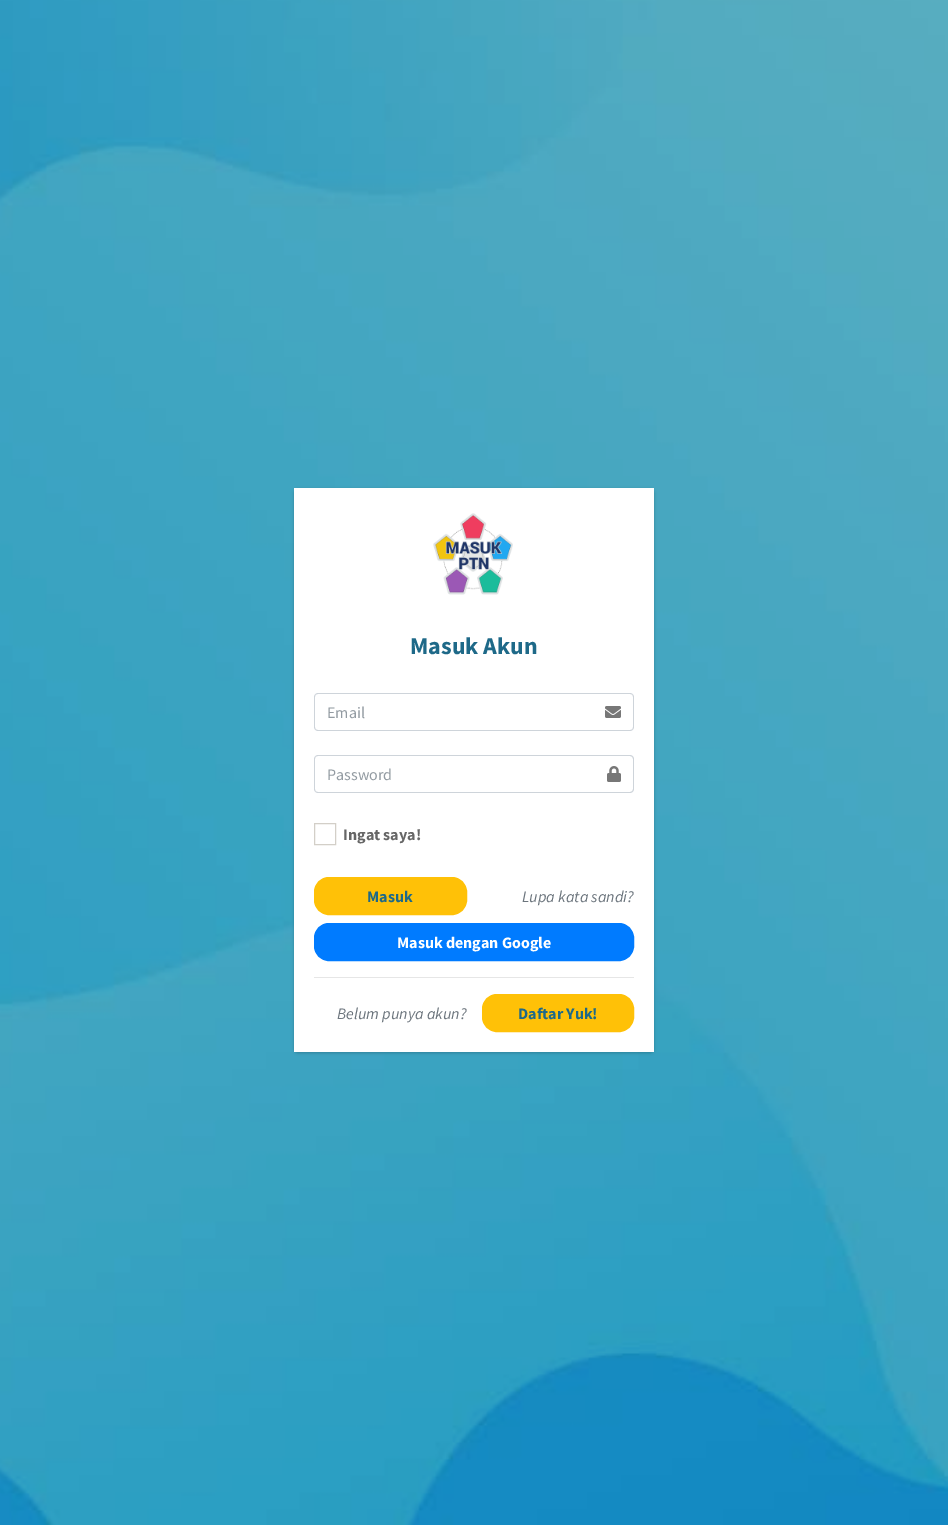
%!PS
<< /PageSize [948 1525] /PageUsesTransparency true >> setpagedevice
/alpha { dup .setfillconstantalpha .setstrokeconstantalpha } def
/roundrect { 5 dict begin { /r /h /w /y /x } { exch def } forall
  x r add y moveto x w add y 2 copy h add r arct x w add y h add x 1 index r arct
  x y h add x y r arct x y 2 copy exch w add exch r arct closepath end } def
/shadow { 12 dict begin { /a /b /q /h /w /y /x } { exch def } forall gsave /was 0 def
  9 -2 -9 { dup b mul 4 div /e exch def 1 sub .425 mul 2.718 exch exp 1 add a .99 .min exch div /now exch def
    1 1 now sub 1 was sub div sub alpha /was now def
    w h .min e 2 mul add 0 gt { x e sub y e sub w e 2 mul add h e 2 mul add
      q e add b .6 mul add w h .min 2 div e add .min 0 .max roundrect fill } if } for grestore end } def
/picture { 5 dict begin { /h /w /y /x /name } { exch def } forall
  gsave x y translate w h scale
  w h 8 [w 0 0 h 0 0] name (r) file false 3 colorimage grestore end } def
0 .pushpdf14devicefilter
0 1525 translate 1 -1 scale
4 setmiterlimit
1 setgray
0 0 948 1525 rectfill
(img1.rgb) 0 0 948 1525 picture
0 setgray
294 489 360 564 4 1.5 0.2 shadow
1 setgray
294 488 360 564 rectfill
(img2.rgb) 433 513 80 82 picture
/SourceSansPro-Bold [24 0 0 -24 0 0] selectfont
0.118 0.412 0.533 setrgbcolor
410 654 moveto (Masuk Akun) show
0.808 0.831 0.855 setrgbcolor
newpath 593 693 moveto 630 693 lineto 632 693 634 695 634 697 curveto 634 727 lineto 634 729 632 731 630 731 curveto 593 731 lineto closepath 593 694 moveto 630 694 lineto 632 694 633 695 633 697 curveto 633 727 lineto 633 729 632 730 630 730 curveto 593 730 lineto closepath eofill
newpath 318 693 moveto 594 693 lineto 594 731 lineto 318 731 lineto 316 731 314 729 314 727 curveto 314 697 lineto 314 695 316 693 318 693 curveto closepath 318 694 moveto 594 694 lineto 594 730 lineto 318 730 lineto 316 730 315 729 315 727 curveto 315 697 lineto 315 695 316 694 318 694 curveto closepath eofill
/SourceSansPro-Regular [16 0 0 -16 0 0] selectfont
0.576 0.608 0.635 setrgbcolor
327 718 moveto (Email) show
(img3.rgb) 605 706 16 12 picture
0.808 0.831 0.855 setrgbcolor
newpath 595 755 moveto 630 755 lineto 632 755 634 757 634 759 curveto 634 789 lineto 634 791 632 793 630 793 curveto 595 793 lineto closepath 595 756 moveto 630 756 lineto 631.5 756 633 757.5 633 759 curveto 633 789 lineto 633 790.5 631.5 792 630 792 curveto 595 792 lineto closepath eofill
newpath 318 755 moveto 596 755 lineto 596 793 lineto 318 793 lineto 316 793 314 791 314 789 curveto 314 759 lineto 314 757 316 755 318 755 curveto closepath 318 756 moveto 596 756 lineto 596 792 lineto 318 792 lineto 316 792 315 791 315 789 curveto 315 759 lineto 315 757 316 756 318 756 curveto closepath eofill
0.576 0.608 0.635 setrgbcolor
327 780 moveto (Password) show
(img4.rgb) 607 766 14 16 picture
0.827 0.812 0.784 setrgbcolor
314.5 823.5 21 21 rectstroke
/SourceSansPro-Bold [16 0 0 -16 0 0] selectfont
0.4 setgray
343 840 moveto (Ingat saya!) show
1 0.757 0.027 setrgbcolor
314.5 877.5 152 37 14.5 roundrect gsave fill grestore
stroke
0.118 0.412 0.533 setrgbcolor
367 902 moveto (Masuk) show
/SourceSansPro-Italic [16 0 0 -16 0 0] selectfont
0.424 0.459 0.49 setrgbcolor
522 902 moveto (Lupa kata sandi?) show
0 0.482 1 setrgbcolor
314.5 923.5 319 37 14.5 roundrect gsave fill grestore
stroke
/SourceSansPro-Bold [16 0 0 -16 0 0] selectfont
1 setgray
397 948 moveto (Masuk dengan Google) show
0.902 setgray
314 977 320 1 rectfill
/SourceSansPro-Italic [16 0 0 -16 0 0] selectfont
0.424 0.459 0.49 setrgbcolor
337 1019 moveto (Belum punya akun?) show
1 0.757 0.027 setrgbcolor
482.5 994.5 151 37 14.5 roundrect gsave fill grestore
stroke
/SourceSansPro-Bold [16 0 0 -16 0 0] selectfont
0.118 0.412 0.533 setrgbcolor
518 1019 moveto (Daftar Yuk!) show
.poppdf14devicefilter showpage
